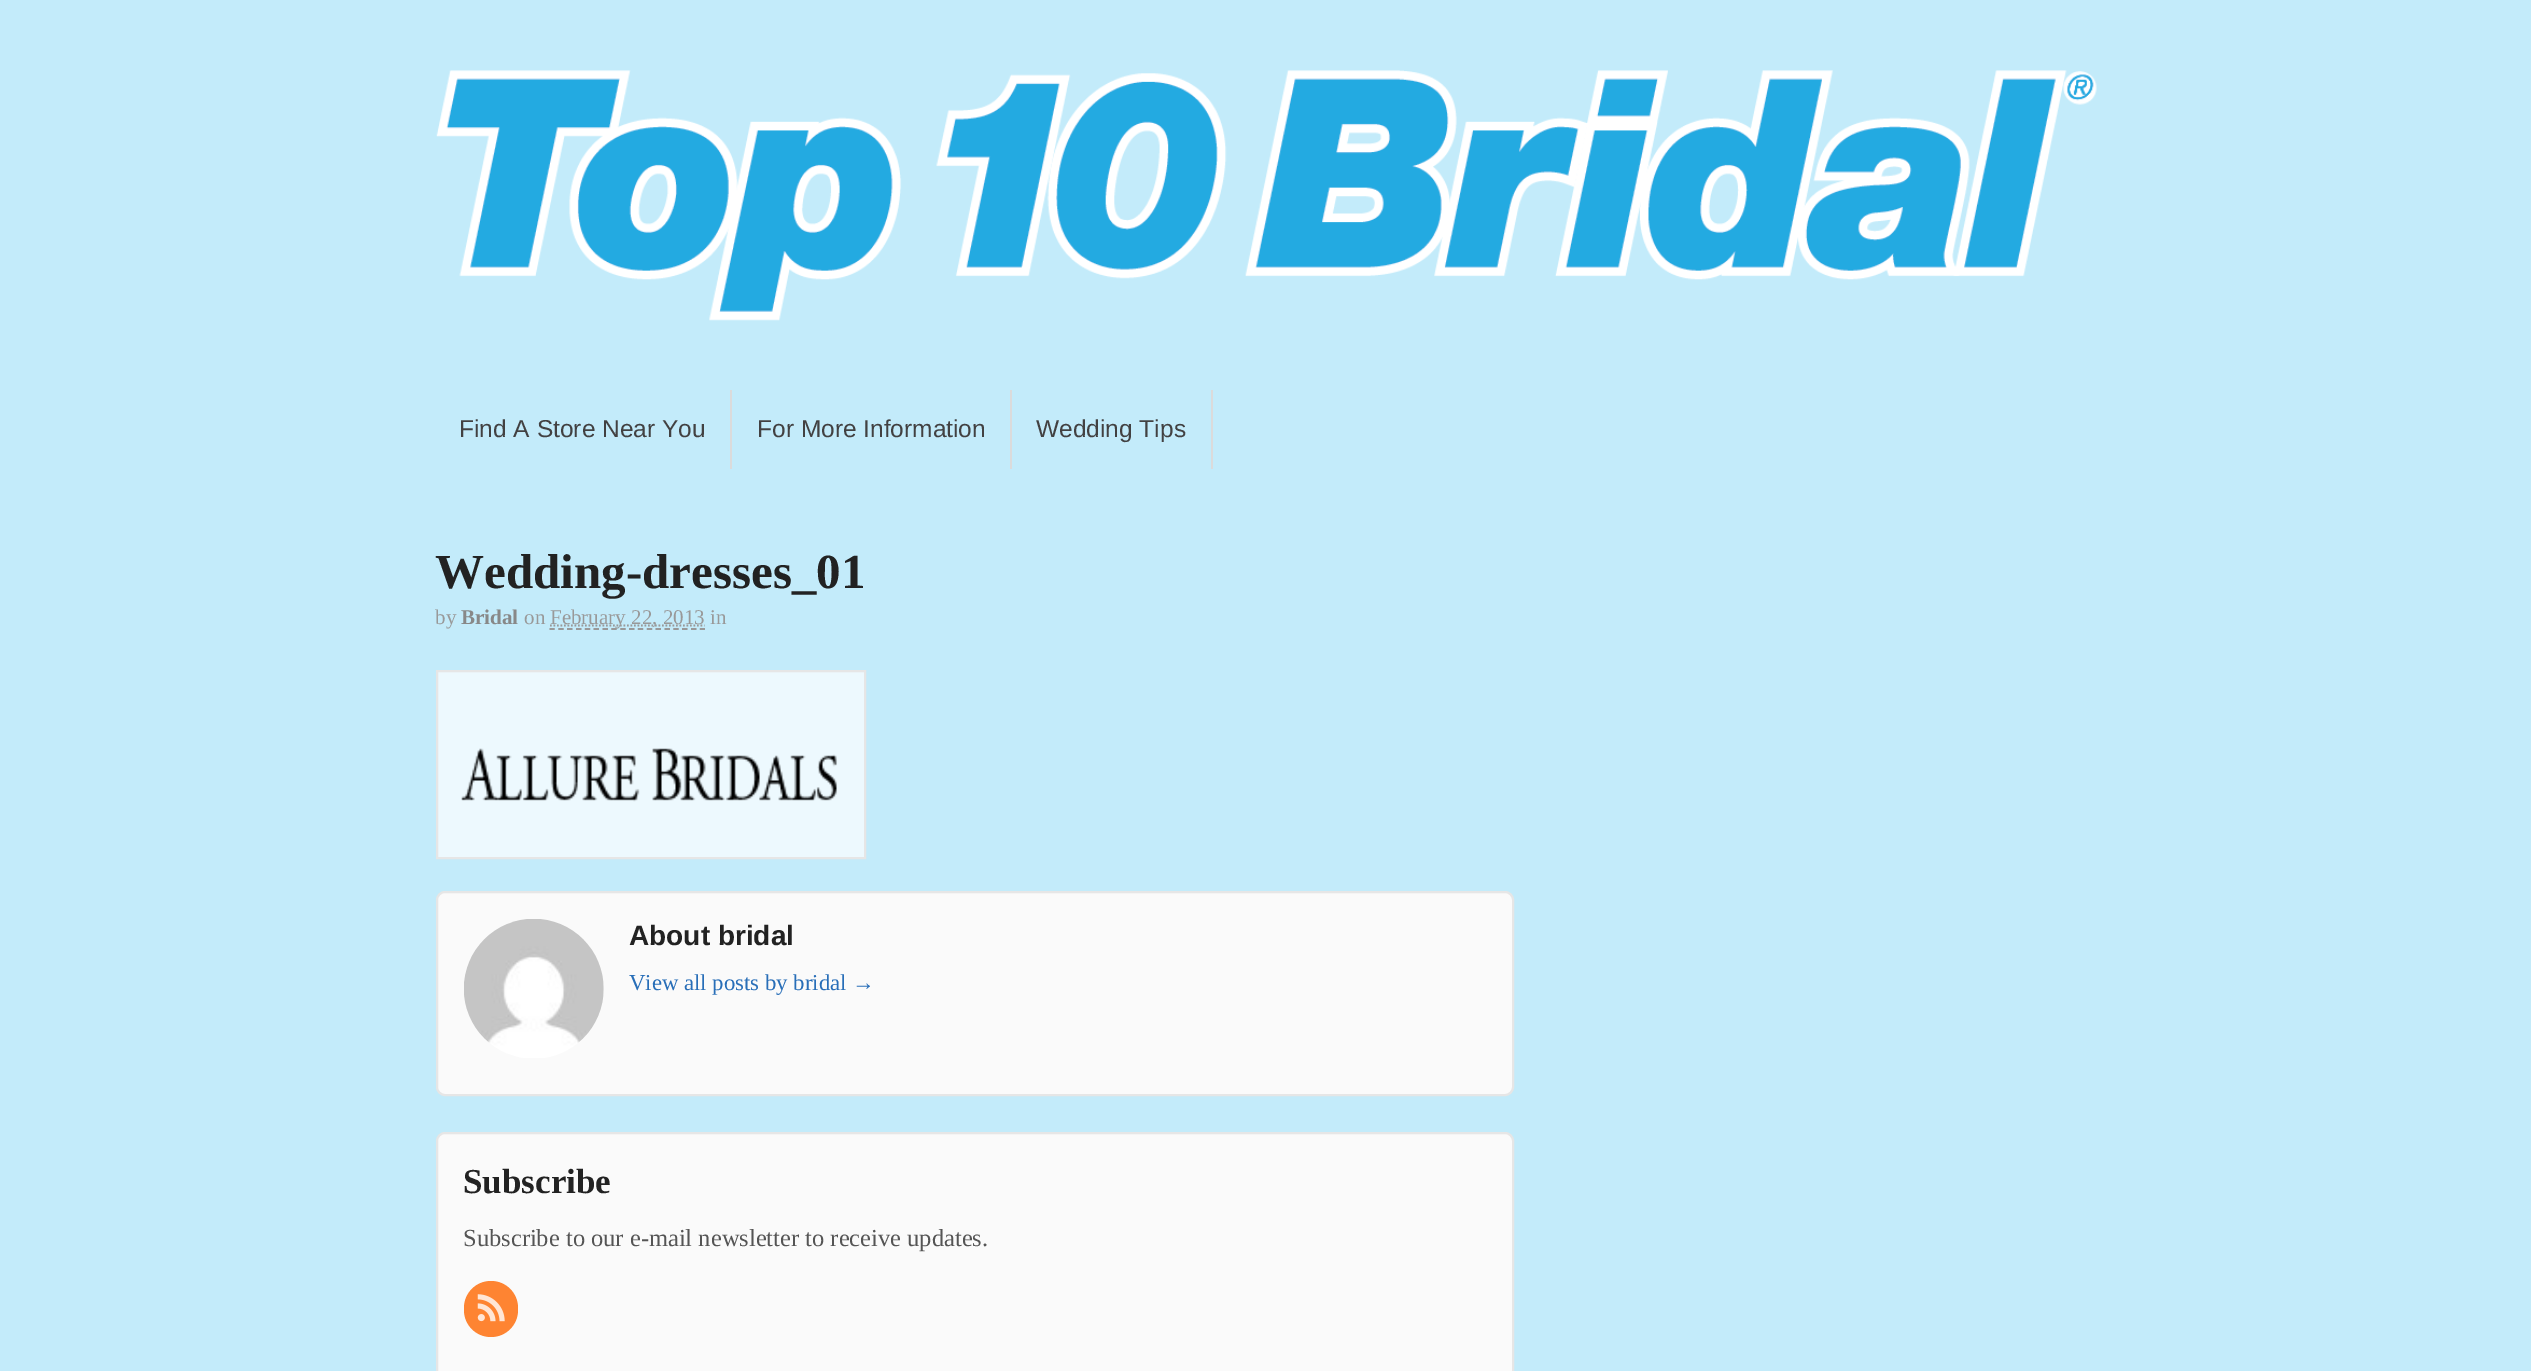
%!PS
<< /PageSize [2531 1371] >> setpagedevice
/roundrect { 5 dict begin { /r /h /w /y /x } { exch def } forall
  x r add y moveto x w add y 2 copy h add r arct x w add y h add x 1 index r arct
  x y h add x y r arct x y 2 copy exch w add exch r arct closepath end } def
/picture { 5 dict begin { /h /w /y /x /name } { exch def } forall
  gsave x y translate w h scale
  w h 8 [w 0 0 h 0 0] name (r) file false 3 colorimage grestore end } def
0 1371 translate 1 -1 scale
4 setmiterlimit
0.765 0.922 0.98 setrgbcolor
0 0 2531 1371 rectfill
(img1.rgb) 436 70 1661 251 picture
0.859 setgray
730 390 2 79 rectfill
/LiberationSans-Regular [24.5 0 0 -24.5 0 0] selectfont
0.259 0.255 0.259 setrgbcolor
459 437 moveto (Find A Store Near You) show
0.859 setgray
1010 390 2 79 rectfill
0.259 0.255 0.259 setrgbcolor
757 437 moveto (For More Information) show
0.859 setgray
1211 390 2 79 rectfill
0.259 0.255 0.259 setrgbcolor
1036 437 moveto (Wedding Tips) show
/LiberationSerif-Bold [49 0 0 -49 0 0] selectfont
0.133 setgray
435 588 moveto (Wedding-dresses_01) show
/LiberationSerif-Regular [21 0 0 -21 0 0] selectfont
0.6 setgray
435 624 moveto (by) show
/LiberationSerif-Bold [21 0 0 -21 0 0] selectfont
0.533 setgray
461 624 moveto (Bridal) show
/LiberationSerif-Regular [21 0 0 -21 0 0] selectfont
0.6 setgray
524 624 moveto (on) show
1.8 setlinewidth
[5.25 3.6] 0 setdash
newpath 549.5 629 moveto 705 629 lineto stroke
[1.75 1.75] 0 setdash
newpath 550 625.5 moveto 704.5 625.5 lineto stroke
550 624 moveto (February 22, 2013 in) show
0.929 0.976 0.996 setrgbcolor
newpath 437 671 moveto 865 671 lineto 865 858 lineto 437 858 lineto closepath gsave fill grestore
0.902 setgray
2 setlinewidth
[] 0 setdash
stroke
(img2.rgb) 461 748 376 54 picture
0.98 setgray
437 892 1076 203 8 roundrect gsave fill grestore
0.902 setgray
stroke
(img3.rgb) 464 919 140 139 picture
/LiberationSans-Bold [28 0 0 -28 0 0] selectfont
0.133 setgray
629 945 moveto (About bridal) show
/LiberationSerif-Regular [22.75 0 0 -22.75 0 0] selectfont
0.157 0.431 0.722 setrgbcolor
629 990 moveto (View all posts by bridal →) show
0.98 setgray
437 1133 1076 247 8 roundrect gsave fill grestore
0.902 setgray
stroke
/LiberationSerif-Bold [35 0 0 -35 0 0] selectfont
0.133 setgray
463 1193 moveto (Subscribe) show
/LiberationSerif-Regular [24.5 0 0 -24.5 0 0] selectfont
0.333 setgray
463 1246 moveto (Subscribe to our e-mail newsletter to receive updates.) show
0.996 0.518 0.196 setrgbcolor
464 1281 54 56 27 roundrect fill
(img4.rgb) 477 1294 28 28 picture
showpage
